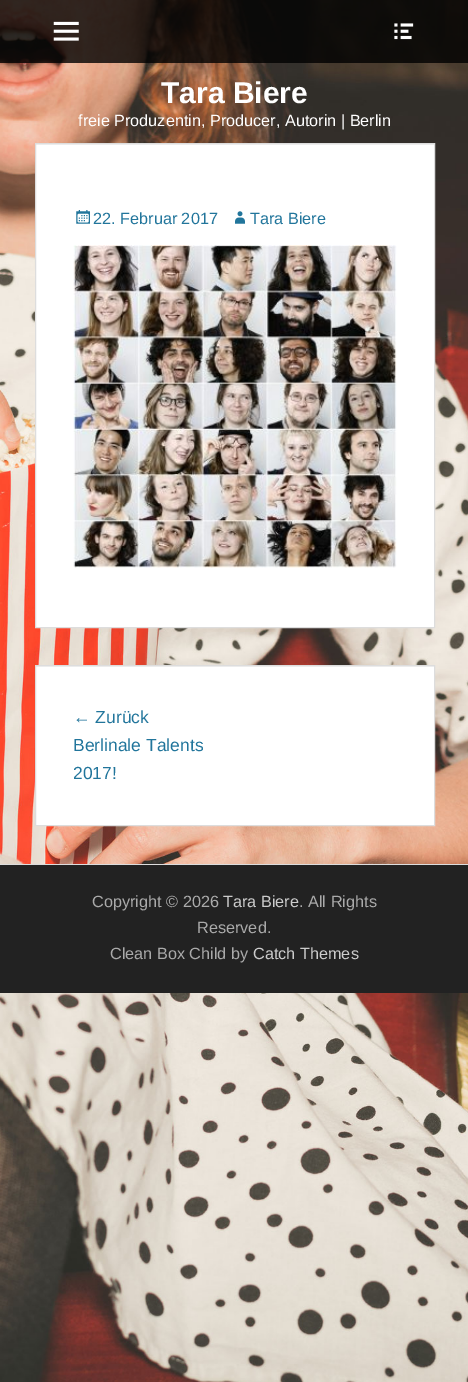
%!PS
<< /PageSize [468 1382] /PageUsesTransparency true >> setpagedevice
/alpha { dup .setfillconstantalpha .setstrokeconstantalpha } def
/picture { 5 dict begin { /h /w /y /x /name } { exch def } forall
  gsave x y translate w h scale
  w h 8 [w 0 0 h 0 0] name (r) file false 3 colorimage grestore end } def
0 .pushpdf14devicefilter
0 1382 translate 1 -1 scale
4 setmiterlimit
1 setgray
0 0 468 1382 rectfill
(img1.rgb) 0 0 468 1382 picture
0.8 alpha
0 setgray
0 0 468 63 rectfill
1 alpha
(img2.rgb) 53 21 26 20 picture
(img3.rgb) 394 23 20 17 picture
/LiberationSans-Bold [30 0 0 -30 0 0] selectfont
1 setgray
161 103 moveto (Tara Biere) show
/LiberationSans-Regular [16.25 0 0 -16.25 0 0] selectfont
78 126 moveto (freie Produzentin, Producer, Autorin | Berlin) show
36 145 398 482 rectfill
0.949 setgray
36 144 398 1 rectfill
0.867 setgray
35.5 143.5 399 484 rectstroke
(img4.rgb) 76 210 14 14 picture
0.129 0.459 0.608 setrgbcolor
93 224 moveto (22. Februar 2017) show
(img5.rgb) 235 211 10 13 picture
250 224 moveto (Tara Biere) show
(img6.rgb) 73 245 324 323 picture
1 setgray
36 667 398 158 rectfill
0.949 setgray
36 666 398 1 rectfill
0.867 setgray
35.5 665.5 399 160 rectstroke
/LiberationSans-Regular [17.5 0 0 -17.5 0 0] selectfont
0.129 0.459 0.608 setrgbcolor
73 723 moveto (← Zurück) show
73 751 moveto (Berlinale Talents) show
73 779 moveto (2017!) show
0.867 setgray
0 864 468 1 rectfill
0.133 setgray
0 865 468 128 rectfill
/LiberationSans-Regular [16.25 0 0 -16.25 0 0] selectfont
0.667 setgray
92 907 moveto (Copyright © 2026) show
0.8 setgray
223 907 moveto (Tara Biere) show
0.667 setgray
299 907 moveto (. All Rights) show
197 933 moveto (Reserved.) show
110 959 moveto (Clean Box Child by) show
0.8 setgray
253 959 moveto (Catch Themes) show
.poppdf14devicefilter showpage
